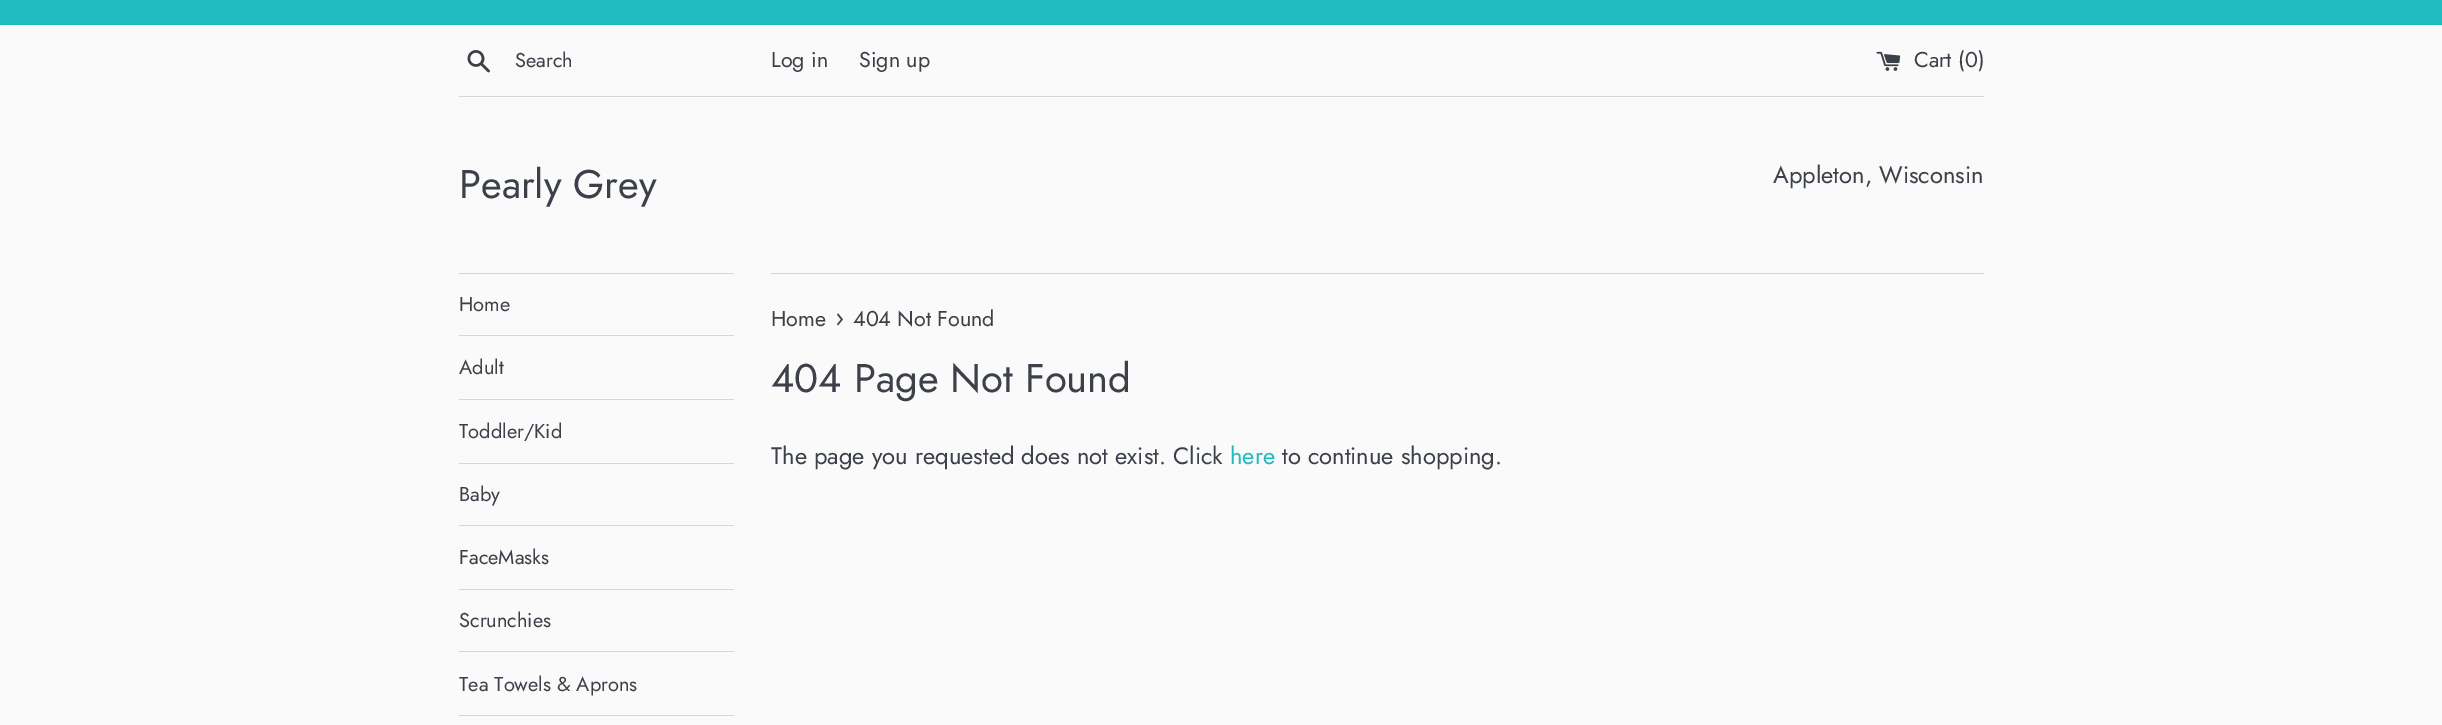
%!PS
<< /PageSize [2442 725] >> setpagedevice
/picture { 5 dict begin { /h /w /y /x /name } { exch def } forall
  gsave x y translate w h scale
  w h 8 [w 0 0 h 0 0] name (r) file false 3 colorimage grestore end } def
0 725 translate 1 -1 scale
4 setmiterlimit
0.98 setgray
0 0 2442 725 rectfill
0.129 0.733 0.761 setrgbcolor
0 0 2442 25 rectfill
(img1.rgb) 467 50 23 23 picture
/Jost-Regular [20 0 0 -20 0 0] selectfont
0.235 0.251 0.286 setrgbcolor
515 67 moveto (Search) show
/Jost-Regular [21.5 0 0 -21.5 0 0] selectfont
771 67 moveto (Log in) show
859 67 moveto (Sign up) show
(img2.rgb) 1876 51 25 20 picture
1914 67 moveto (Cart \(0\)) show
0.843 0.847 0.824 setrgbcolor
459 96 1525 1 rectfill
/Jost-Regular [40 0 0 -40 0 0] selectfont
0.235 0.251 0.286 setrgbcolor
459 198 moveto (Pearly Grey) show
/Jost-Regular [23.75 0 0 -23.75 0 0] selectfont
1773 183 moveto (Appleton, Wisconsin) show
0.843 0.847 0.824 setrgbcolor
459 273 275 1 rectfill
459 335 275 1 rectfill
/Jost-Regular [20 0 0 -20 0 0] selectfont
0.235 0.251 0.286 setrgbcolor
459 311 moveto (Home) show
0.843 0.847 0.824 setrgbcolor
459 399 275 1 rectfill
0.235 0.251 0.286 setrgbcolor
459 374 moveto (Adult) show
0.843 0.847 0.824 setrgbcolor
459 463 275 1 rectfill
0.235 0.251 0.286 setrgbcolor
459 438 moveto (Toddler/Kid) show
0.843 0.847 0.824 setrgbcolor
459 525 275 1 rectfill
0.235 0.251 0.286 setrgbcolor
459 501 moveto (Baby) show
0.843 0.847 0.824 setrgbcolor
459 589 275 1 rectfill
0.235 0.251 0.286 setrgbcolor
459 564 moveto (FaceMasks) show
0.843 0.847 0.824 setrgbcolor
459 651 275 1 rectfill
0.235 0.251 0.286 setrgbcolor
459 627 moveto (Scrunchies) show
0.843 0.847 0.824 setrgbcolor
459 715 275 1 rectfill
0.235 0.251 0.286 setrgbcolor
459 691 moveto (Tea Towels & Aprons) show
0.843 0.847 0.824 setrgbcolor
771 273 1213 1 rectfill
/Jost-Regular [21.5 0 0 -21.5 0 0] selectfont
0.235 0.251 0.286 setrgbcolor
771 326 moveto (Home) show
/Jost-Regular [26 0 0 -26 0 0] selectfont
835 326 moveto (›) show
/Jost-Regular [21.5 0 0 -21.5 0 0] selectfont
853 326 moveto (404 Not Found) show
/Jost-Regular [40 0 0 -40 0 0] selectfont
771 392 moveto (404 Page Not Found) show
/Jost-Regular [23.75 0 0 -23.75 0 0] selectfont
771 464 moveto (The page you requested does not exist. Click) show
0.129 0.733 0.761 setrgbcolor
1230 464 moveto (here) show
0.235 0.251 0.286 setrgbcolor
1282 464 moveto (to continue shopping.) show
showpage
